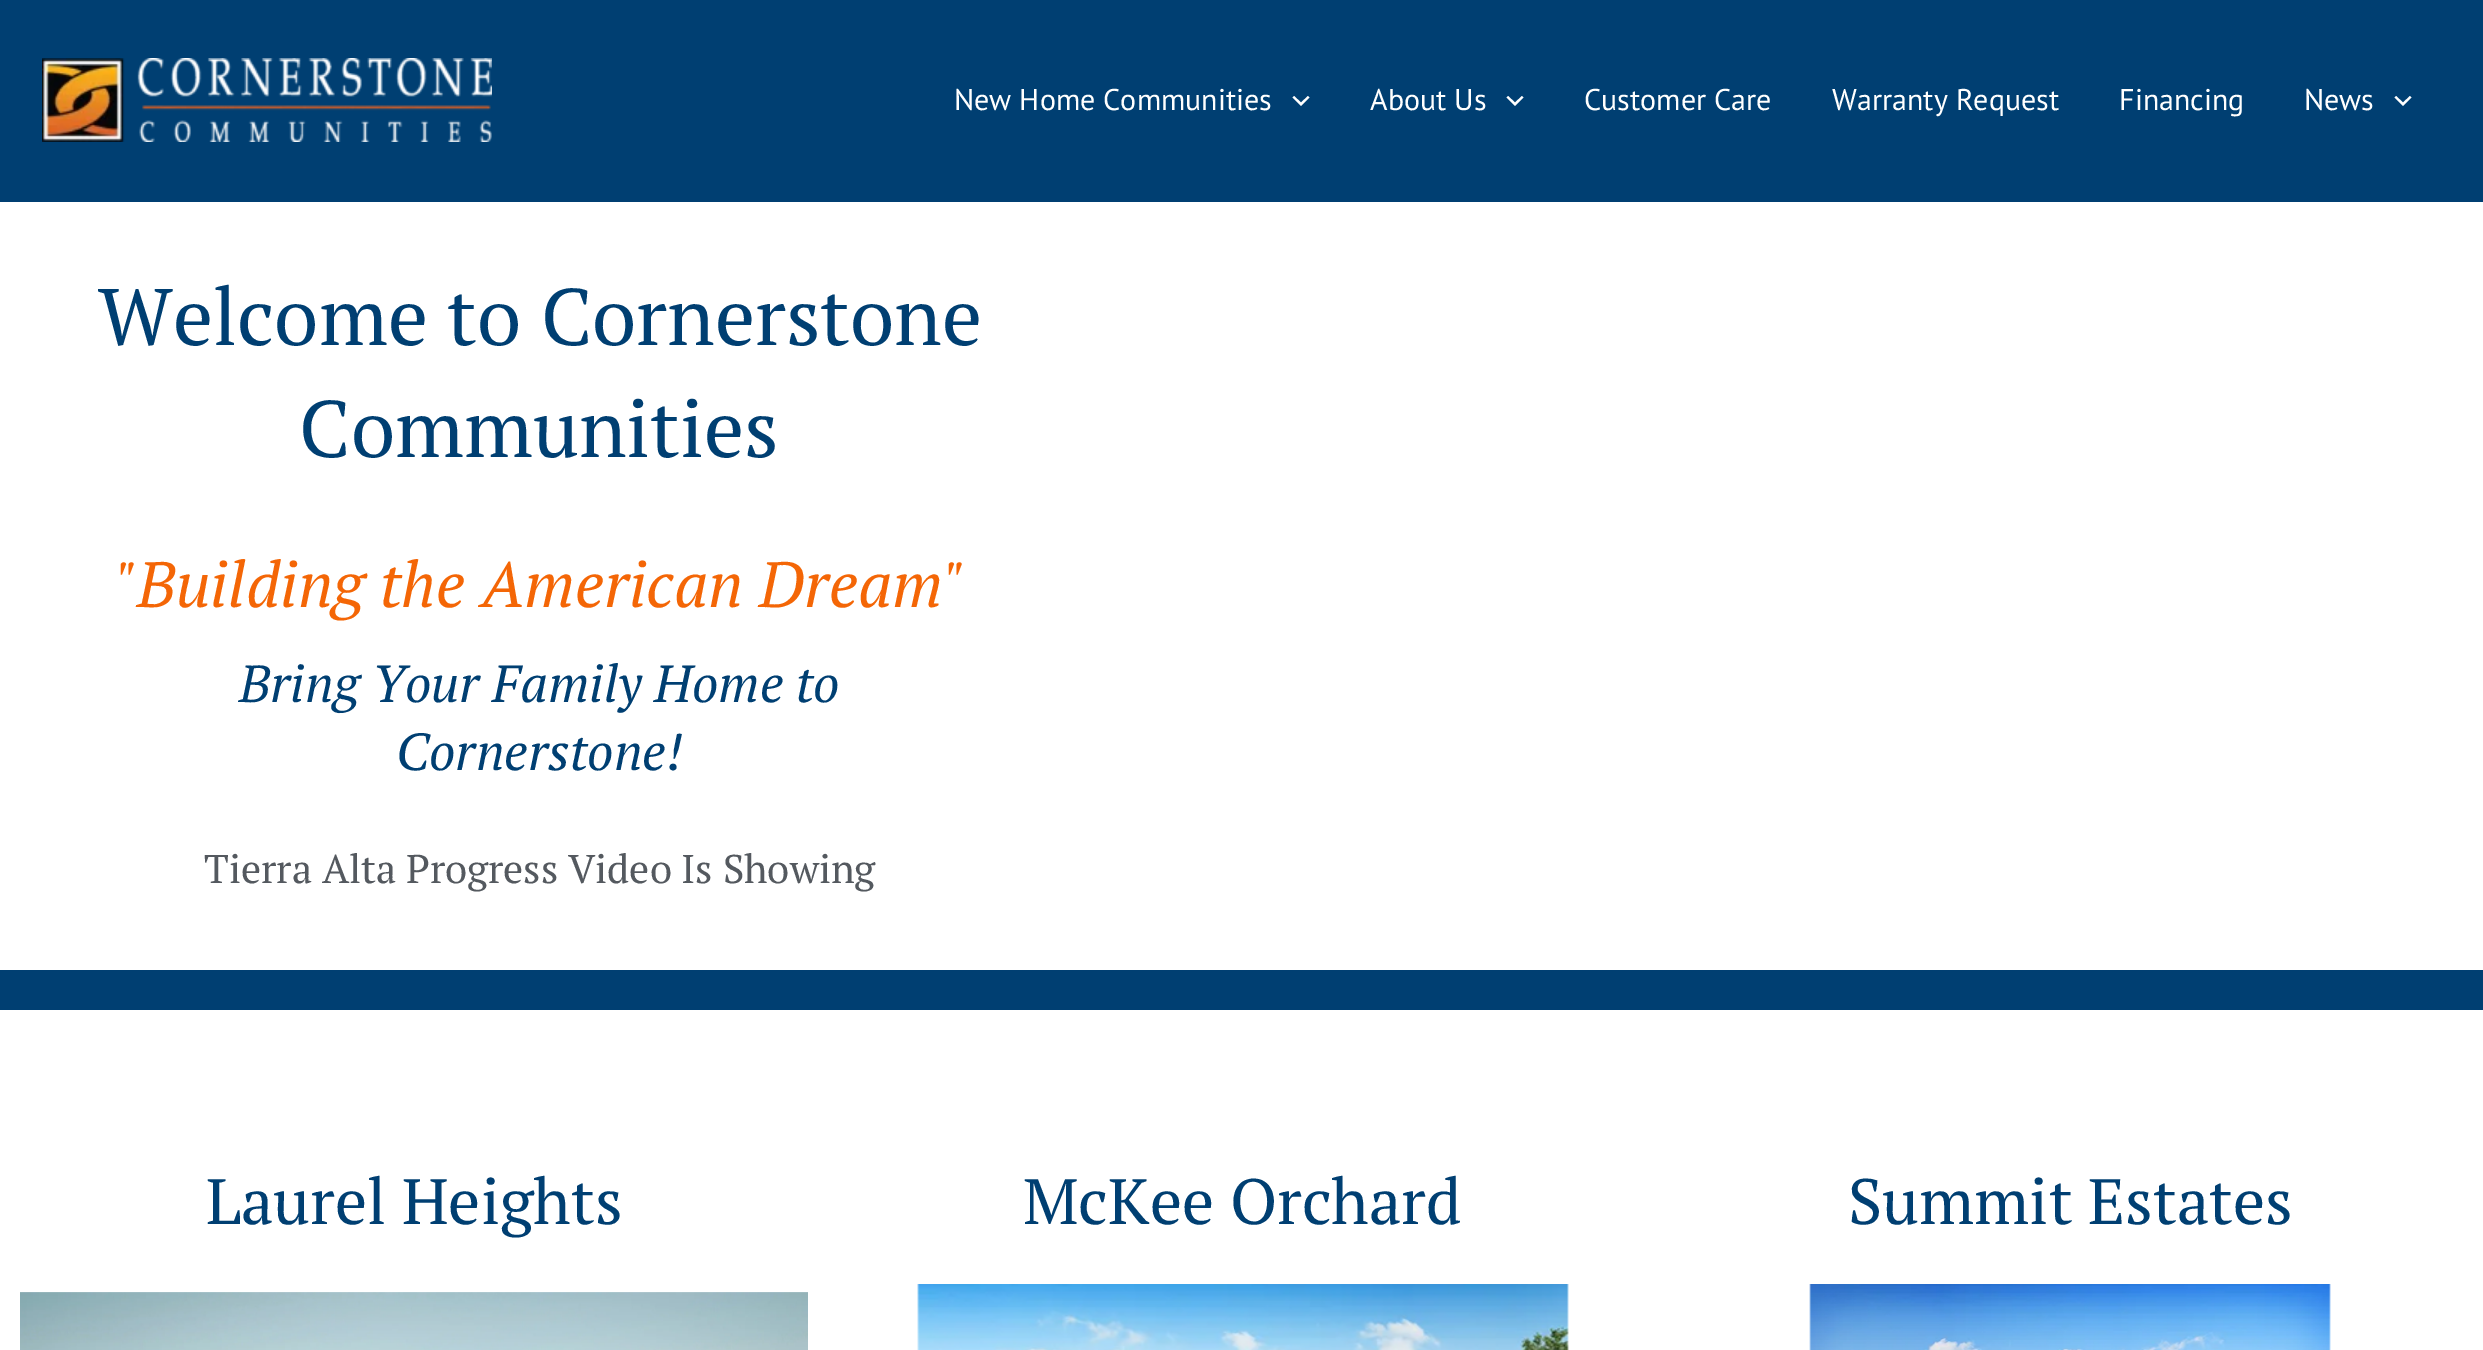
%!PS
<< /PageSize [2483 1350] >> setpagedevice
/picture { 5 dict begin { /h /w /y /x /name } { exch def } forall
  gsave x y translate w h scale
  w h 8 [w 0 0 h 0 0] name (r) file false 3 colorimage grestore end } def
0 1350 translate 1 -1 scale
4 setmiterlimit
1 setgray
0 0 2483 1350 rectfill
0 0.247 0.447 setrgbcolor
0 0 2483 202 rectfill
(img1.rgb) 42 58 450 84 picture
/PTSans-Regular [30 0 0 -30 0 0] selectfont
1 setgray
954 110 moveto (New Home Communities) show
newpath 1292.5 97.5 moveto 1301 106 lineto 1309.5 97.5 lineto 1308 96 lineto 1301 102.5 lineto 1294 96 lineto closepath fill
1370 110 moveto (About Us) show
newpath 1506.5 97.5 moveto 1515 106 lineto 1523.5 97.5 lineto 1522 96 lineto 1515 102.5 lineto 1508 96 lineto closepath fill
1584 110 moveto (Customer Care) show
1832 110 moveto (Warranty Request) show
2119 110 moveto (Financing) show
2304 110 moveto (News) show
newpath 2394.5 97.5 moveto 2403 106 lineto 2411.5 97.5 lineto 2410 96 lineto 2403 102.5 lineto 2396 96 lineto closepath fill
0 0.247 0.447 setrgbcolor
0 970 2483 40 rectfill
/PTSerif-Regular [80 0 0 -80 0 0] selectfont
98 345 moveto (Welcome to Cornerstone) show
299 457 moveto (Communities) show
/PTSerif-Italic [64 0 0 -64 0 0] selectfont
0.957 0.4 0.024 setrgbcolor
115 607 moveto ("Building the American Dream") show
/PTSerif-Italic [52 0 0 -52 0 0] selectfont
0 0.247 0.447 setrgbcolor
239 702 moveto (Bring Your Family Home to) show
396 770 moveto (Cornerstone!) show
/PTSerif-Regular [40 0 0 -40 0 0] selectfont
0.329 0.349 0.373 setrgbcolor
204 883 moveto (Tierra Alta Progress Video Is Showing) show
/PTSerif-Regular [64 0 0 -64 0 0] selectfont
0 0.247 0.447 setrgbcolor
206 1224 moveto (Laurel Heights) show
(img2.rgb) 20 1292 788 58 picture
1023 1224 moveto (McKee Orchard) show
(img3.rgb) 917 1284 652 66 picture
1848 1224 moveto (Summit Estates) show
(img4.rgb) 1809 1284 522 66 picture
showpage
